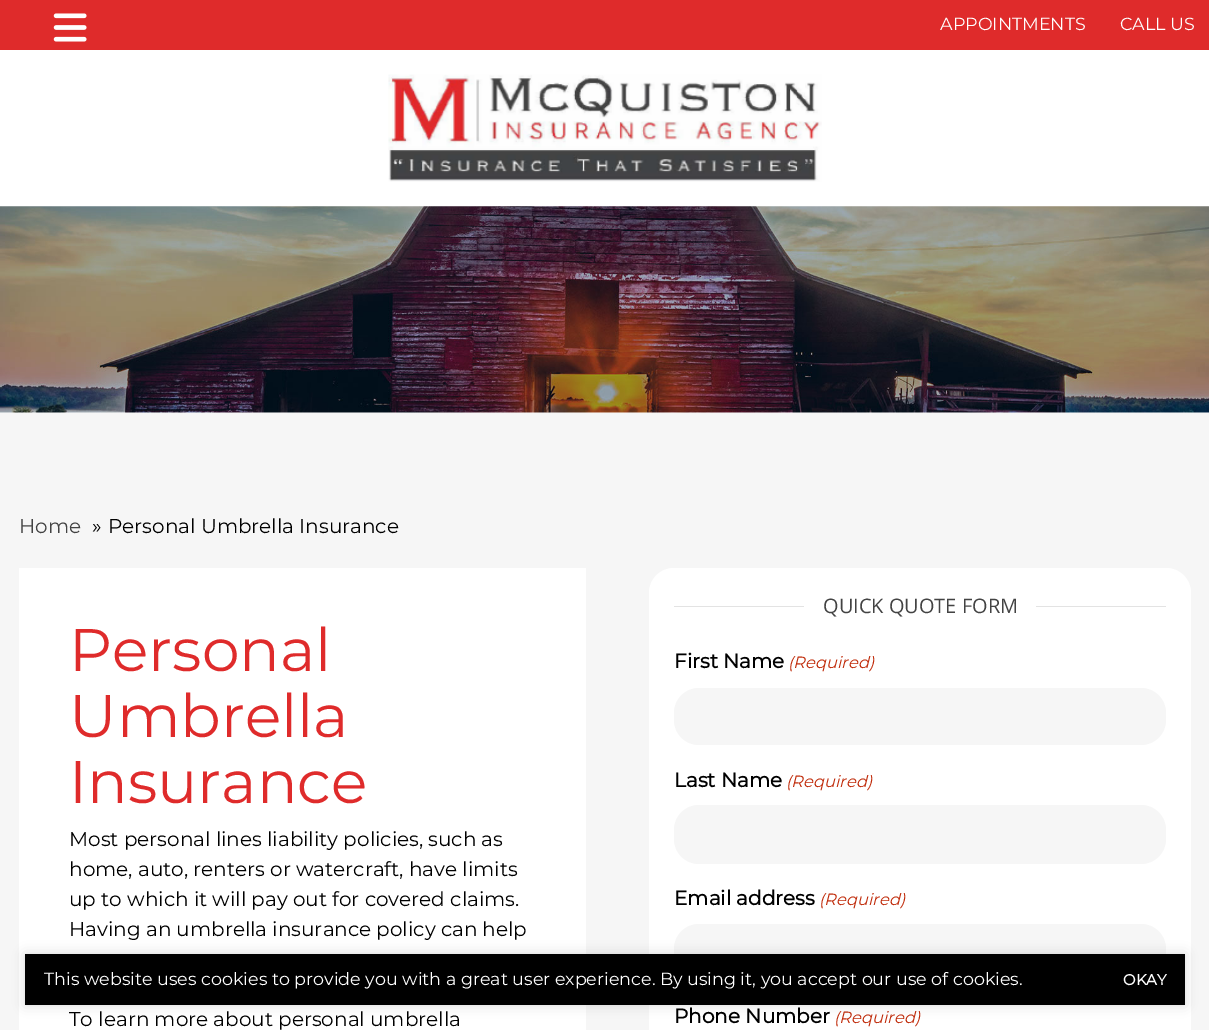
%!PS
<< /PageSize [1209 1030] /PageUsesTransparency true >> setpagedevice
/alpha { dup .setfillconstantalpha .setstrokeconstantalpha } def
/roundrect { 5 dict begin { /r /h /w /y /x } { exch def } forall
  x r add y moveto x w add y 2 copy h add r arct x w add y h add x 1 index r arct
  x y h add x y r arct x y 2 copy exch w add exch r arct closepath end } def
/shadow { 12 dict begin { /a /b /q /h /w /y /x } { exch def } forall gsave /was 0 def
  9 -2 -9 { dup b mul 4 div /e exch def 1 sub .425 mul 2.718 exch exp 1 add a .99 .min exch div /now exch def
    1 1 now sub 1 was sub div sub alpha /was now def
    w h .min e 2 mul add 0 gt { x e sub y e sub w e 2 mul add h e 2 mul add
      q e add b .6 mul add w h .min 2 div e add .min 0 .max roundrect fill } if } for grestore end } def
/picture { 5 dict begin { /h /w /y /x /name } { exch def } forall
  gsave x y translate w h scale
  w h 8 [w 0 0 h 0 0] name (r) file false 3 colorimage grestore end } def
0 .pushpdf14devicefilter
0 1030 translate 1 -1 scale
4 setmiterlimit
1 setgray
0 0 1209 1030 rectfill
0.875 0.169 0.169 setrgbcolor
0 0 1209 50 rectfill
(img1.rgb) 53 13 34 29 picture
/Montserrat-Thin [17.5 0 0 -17.5 0 0] selectfont
1 setgray
940 30 moveto (APPOINTMENTS) show
1120 30 moveto (CALL US) show
(img2.rgb) 388 74 434 108 picture
(img3.rgb) 0 206 1209 207 picture
0.965 setgray
0 413 1209 617 rectfill
/Montserrat-Thin [20 0 0 -20 0 0] selectfont
0.263 setgray
19 533 moveto (Home) show
0 setgray
92 533 moveto (») show
108 533 moveto (Personal Umbrella Insurance) show
1 setgray
19 568 567 462 rectfill
/Montserrat-Thin [60 0 0 -60 0 0] selectfont
0.875 0.169 0.169 setrgbcolor
69 671 moveto (Personal) show
69 737 moveto (Umbrella) show
69 803 moveto (Insurance) show
/Montserrat-Thin [20 0 0 -20 0 0] selectfont
0 setgray
69 846 moveto (Most personal lines liability policies, such as) show
69 876 moveto (home, auto, renters or watercraft, have limits) show
69 906 moveto (up to which it will pay out for covered claims.) show
69 936 moveto (Having an umbrella insurance policy can help) show
69 1026 moveto (To learn more about personal umbrella) show
1 setgray
649 568 542 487 25 roundrect fill
0.89 setgray
674 606 492 1 rectfill
1 setgray
804 606 232 1 rectfill
/OpenSans-Regular [20 0 0 -20 0 0] selectfont
0.263 setgray
823 613 moveto (QUICK QUOTE FORM) show
/Montserrat-Bold [20 0 0 -20 0 0] selectfont
0 setgray
674 668 moveto (First Name) show
/Montserrat-ThinItalic [16.25 0 0 -16.25 0 0] selectfont
0.753 0.169 0.039 setrgbcolor
788 668 moveto (\(Required\)) show
0.965 setgray
674 688 492 57 25 roundrect fill
/Montserrat-Bold [20 0 0 -20 0 0] selectfont
0 setgray
674 787 moveto (Last Name) show
/Montserrat-ThinItalic [16.25 0 0 -16.25 0 0] selectfont
0.753 0.169 0.039 setrgbcolor
786 787 moveto (\(Required\)) show
0.965 setgray
674 805 492 59 25 roundrect fill
/Montserrat-Bold [20 0 0 -20 0 0] selectfont
0 setgray
674 905 moveto (Email address) show
/Montserrat-ThinItalic [16.25 0 0 -16.25 0 0] selectfont
0.753 0.169 0.039 setrgbcolor
819 905 moveto (\(Required\)) show
0.965 setgray
674 924 492 57 25 roundrect fill
/Montserrat-Bold [20 0 0 -20 0 0] selectfont
0 setgray
674 1023 moveto (Phone Number) show
/Montserrat-ThinItalic [16.25 0 0 -16.25 0 0] selectfont
0.753 0.169 0.039 setrgbcolor
834 1023 moveto (\(Required\)) show
0 setgray
25 954 1160 51 0 6 0.15 shadow
25 954 1160 51 rectfill
/Montserrat-Thin [17.5 0 0 -17.5 0 0] selectfont
1 setgray
44 985 moveto (This website uses cookies to provide you with a great user experience. By using it, you accept our use of cookies.) show
/Montserrat-Bold [15 0 0 -15 0 0] selectfont
1123 985 moveto (OKAY) show
.poppdf14devicefilter showpage
